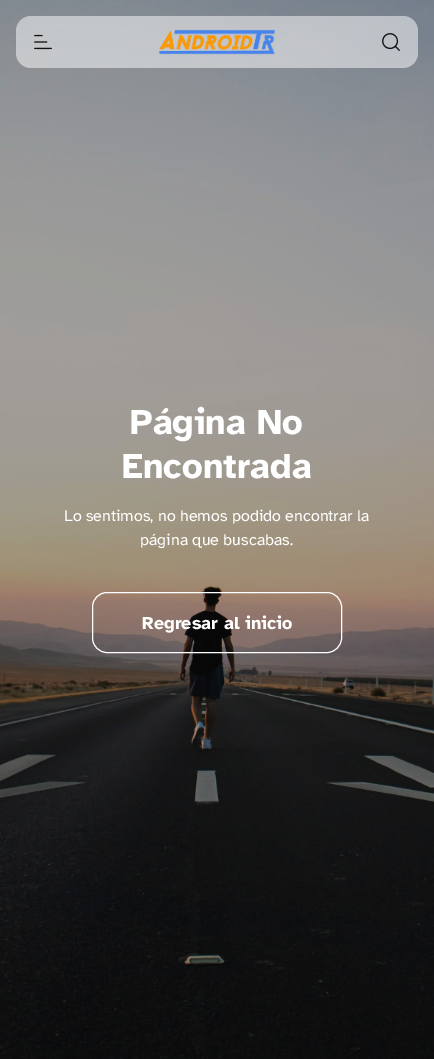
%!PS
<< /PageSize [434 1059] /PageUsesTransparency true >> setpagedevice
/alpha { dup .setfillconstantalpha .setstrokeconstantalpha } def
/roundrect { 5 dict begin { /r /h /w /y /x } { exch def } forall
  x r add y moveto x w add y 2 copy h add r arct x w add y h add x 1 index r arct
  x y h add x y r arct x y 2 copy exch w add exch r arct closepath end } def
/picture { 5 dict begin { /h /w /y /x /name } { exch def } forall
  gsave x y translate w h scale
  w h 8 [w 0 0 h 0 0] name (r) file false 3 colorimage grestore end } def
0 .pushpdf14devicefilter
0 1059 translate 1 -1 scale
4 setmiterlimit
0.071 setgray
0 0 434 1059 rectfill
(img4.rgb) 0 0 434 1059 picture
0.5 alpha
1 setgray
16 16 402 52 15 roundrect fill
1 alpha
(img1.rgb) 34 34 18 16 picture
(img2.rgb) 158 29 118 26 picture
(img3.rgb) 382 33 18 18 picture
/AtkinsonHyperlegible-Bold [36 0 0 -36 0 0] selectfont
130 434 moveto (Página No) show
122 478 moveto (Encontrada) show
/AtkinsonHyperlegible-Regular [16 0 0 -16 0 0] selectfont
64 521 moveto (Lo sentimos, no hemos podido encontrar la) show
140 545 moveto (página que buscabas.) show
92.5 592.5 249 60 14.5 roundrect stroke
/AtkinsonHyperlegible-Bold [18 0 0 -18 0 0] selectfont
142 629 moveto (Regresar al inicio) show
.poppdf14devicefilter showpage
